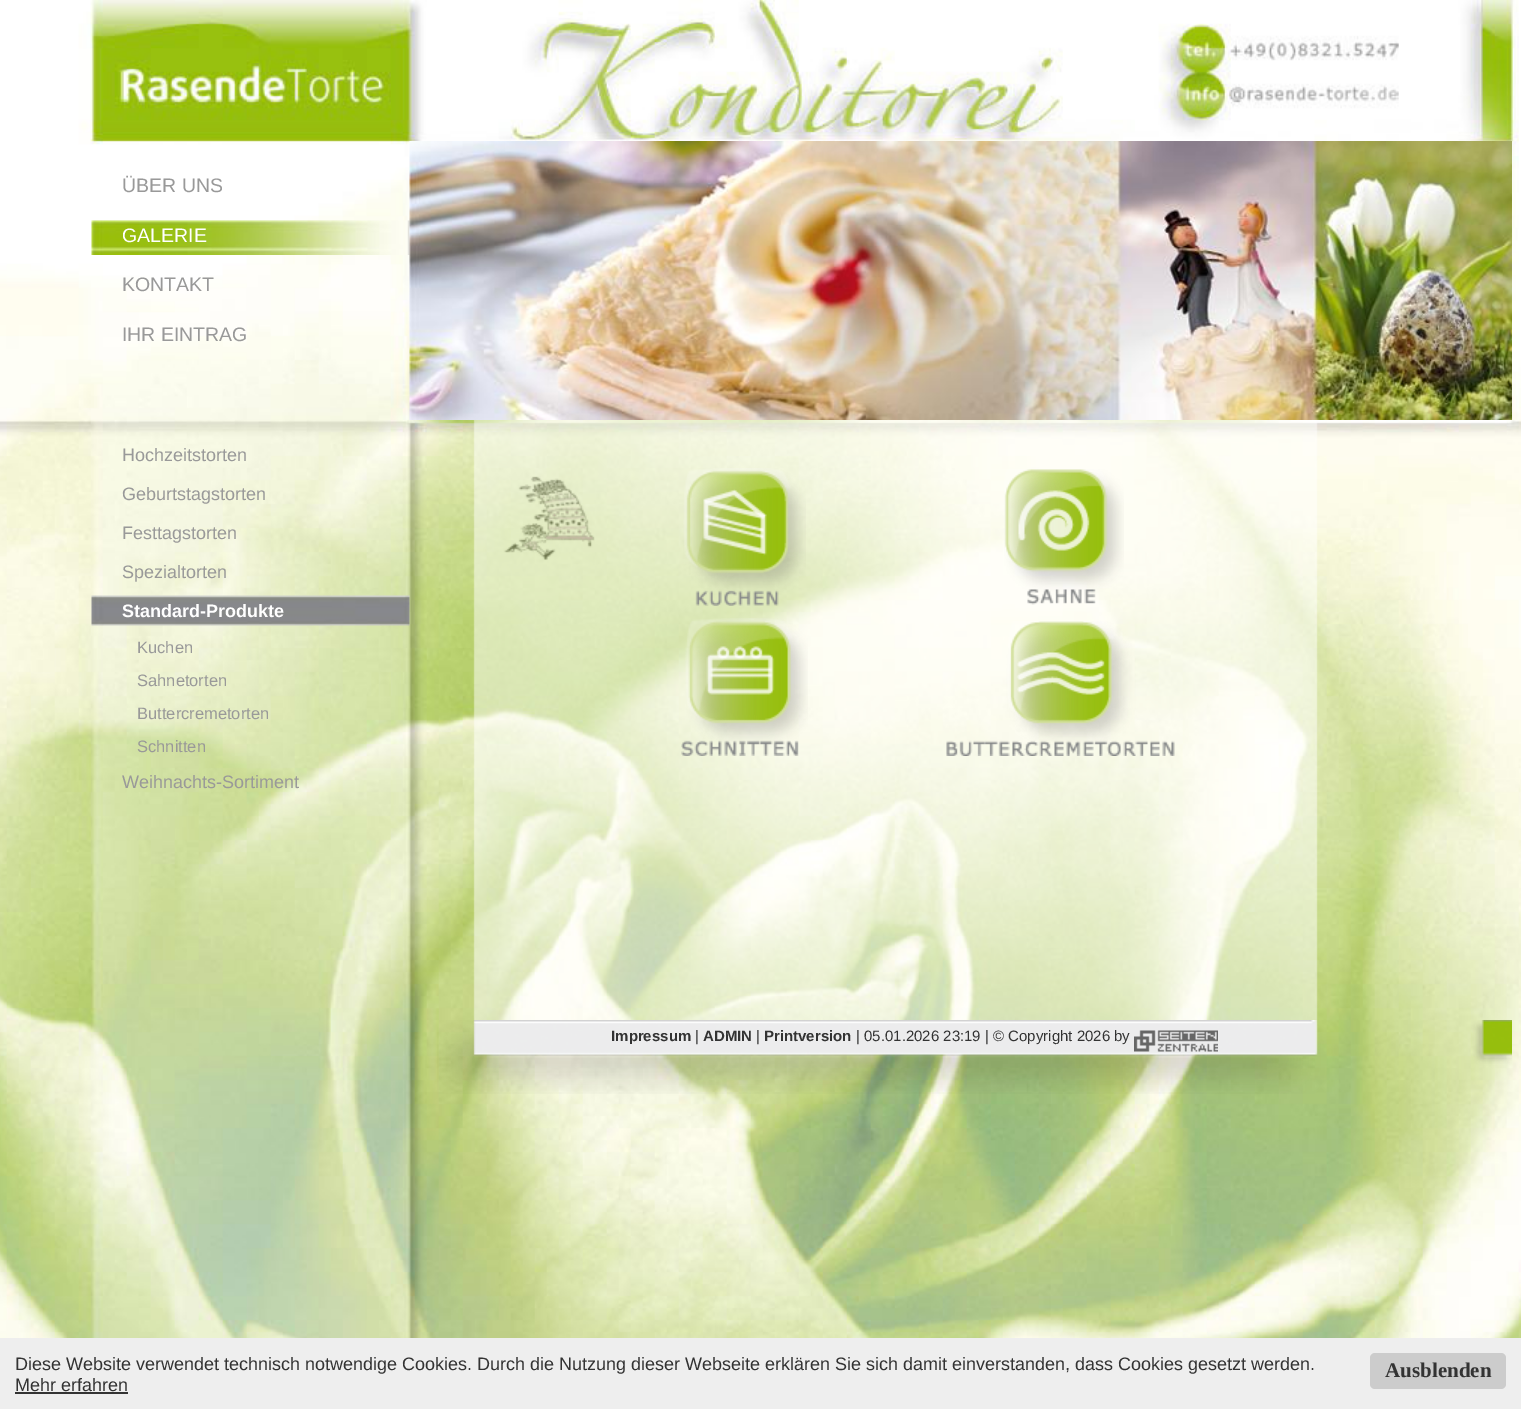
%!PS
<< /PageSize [1521 1409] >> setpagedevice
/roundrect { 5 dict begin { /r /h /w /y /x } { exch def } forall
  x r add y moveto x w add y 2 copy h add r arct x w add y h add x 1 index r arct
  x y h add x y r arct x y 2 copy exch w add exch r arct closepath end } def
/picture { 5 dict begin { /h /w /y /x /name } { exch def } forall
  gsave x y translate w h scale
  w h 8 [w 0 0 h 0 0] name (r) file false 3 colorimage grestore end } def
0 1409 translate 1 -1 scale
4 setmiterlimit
1 setgray
0 0 1521 1409 rectfill
(img1.rgb) 0 0 1521 1338 picture
/LiberationSans-Regular [19.5 0 0 -19.5 0 0] selectfont
0.6 setgray
122 192 moveto (ÜBER UNS) show
(img2.rgb) 91 220 319 35 picture
1 setgray
122 242 moveto (GALERIE) show
0.6 setgray
122 291 moveto (KONTAKT) show
122 341 moveto (IHR EINTRAG) show
(img3.rgb) 409 141 1103 279 picture
/LiberationSans-Regular [18 0 0 -18 0 0] selectfont
122 461 moveto (Hochzeitstorten) show
122 500 moveto (Geburtstagstorten) show
122 539 moveto (Festtagstorten) show
122 578 moveto (Spezialtorten) show
(img4.rgb) 91 595 319 31 picture
/LiberationSans-Bold [18 0 0 -18 0 0] selectfont
1 setgray
122 617 moveto (Standard-Produkte) show
/LiberationSans-Regular [16.5 0 0 -16.5 0 0] selectfont
0.6 setgray
137 653 moveto (Kuchen) show
137 686 moveto (Sahnetorten) show
137 719 moveto (Buttercremetorten) show
137 752 moveto (Schnitten) show
/LiberationSans-Regular [18 0 0 -18 0 0] selectfont
122 788 moveto (Weihnachts-Sortiment) show
(img5.rgb) 473 420 845 600 picture
(img6.rgb) 683 468 123 138 picture
(img7.rgb) 1004 469 120 136 picture
(img8.rgb) 681 618 127 138 picture
(img9.rgb) 946 621 229 135 picture
(img10.rgb) 437 1020 1075 74 picture
/LiberationSans-Bold [15 0 0 -15 0 0] selectfont
0.2 setgray
611 1041 moveto (Impressum) show
/LiberationSans-Regular [15 0 0 -15 0 0] selectfont
695 1041 moveto (|) show
/LiberationSans-Bold [15 0 0 -15 0 0] selectfont
703 1041 moveto (ADMIN) show
/LiberationSans-Regular [15 0 0 -15 0 0] selectfont
756 1041 moveto (|) show
/LiberationSans-Bold [15 0 0 -15 0 0] selectfont
764 1041 moveto (Printversion) show
/LiberationSans-Regular [15 0 0 -15 0 0] selectfont
856 1041 moveto (| 05.01.2026 23:19 | © Copyright 2026 by) show
(img11.rgb) 1134 1030 84 22 picture
0.933 setgray
0 1338 1521 71 rectfill
/LiberationSans-Regular [18 0 0 -18 0 0] selectfont
0.2 setgray
15 1370 moveto (Diese Website verwendet technisch notwendige Cookies. Durch die Nutzung dieser Webseite erklären Sie sich damit einverstanden, dass Cookies gesetzt werden.) show
15 1391 moveto (Mehr erfahren) show
15 1392 113 2 rectfill
0.8 setgray
1370 1353 136 36 5 roundrect fill
/LiberationSerif-Bold [21 0 0 -21 0 0] selectfont
0.2 setgray
1385 1377 moveto (Ausblenden) show
showpage
